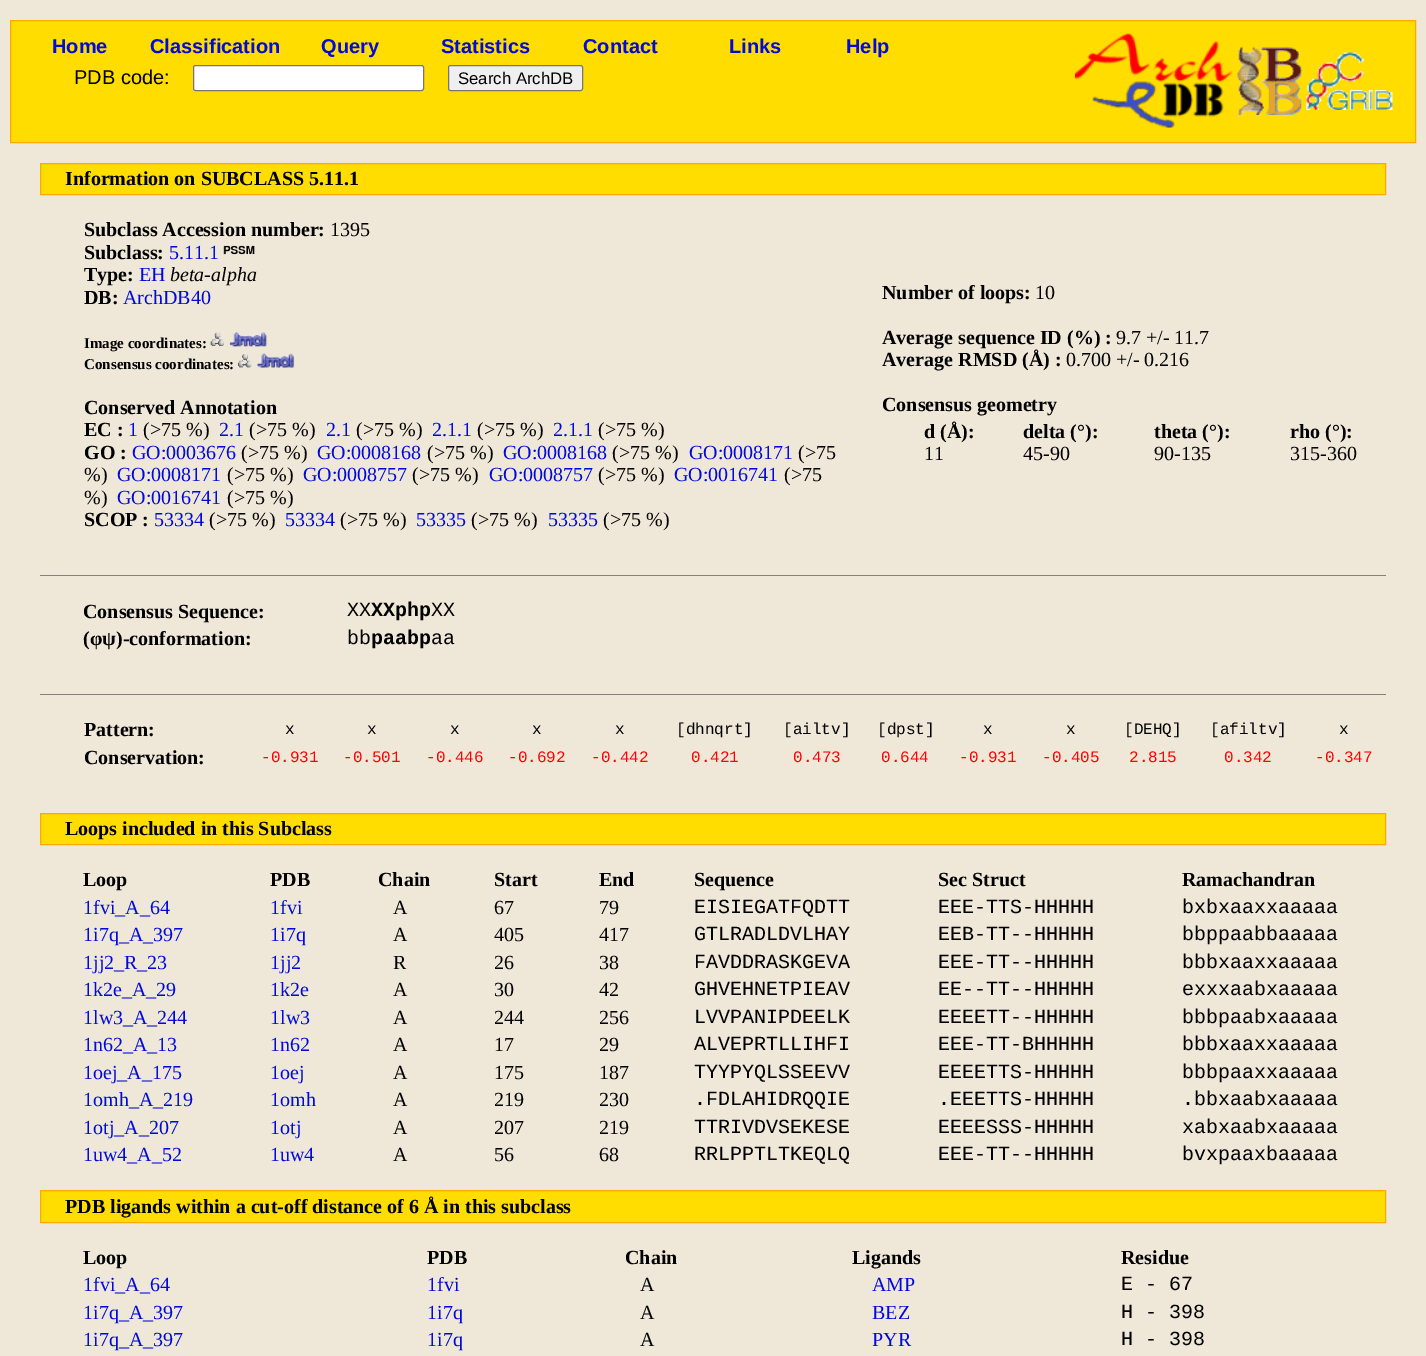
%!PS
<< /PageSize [1426 1356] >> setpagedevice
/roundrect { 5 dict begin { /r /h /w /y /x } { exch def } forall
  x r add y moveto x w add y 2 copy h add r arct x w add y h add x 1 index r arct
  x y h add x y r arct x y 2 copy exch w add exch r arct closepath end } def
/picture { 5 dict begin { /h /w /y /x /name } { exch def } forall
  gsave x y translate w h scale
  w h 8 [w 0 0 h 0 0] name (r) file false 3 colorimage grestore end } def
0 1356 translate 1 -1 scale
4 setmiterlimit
0.937 0.91 0.851 setrgbcolor
0 0 1426 1356 rectfill
1 0.867 0 setrgbcolor
newpath 10.5 20.5 moveto 1415.5 20.5 lineto 1415.5 142.5 lineto 10.5 142.5 lineto closepath gsave fill grestore
1 0.659 0 setrgbcolor
stroke
/LiberationSans-Bold [20 0 0 -20 0 0] selectfont
0 0.039 0.851 setrgbcolor
52 53 moveto (Home) show
150 53 moveto (Classification) show
321 53 moveto (Query) show
441 53 moveto (Statistics) show
583 53 moveto (Contact) show
729 53 moveto (Links) show
846 53 moveto (Help) show
/LiberationSans-Regular [20 0 0 -20 0 0] selectfont
0 setgray
74 84 moveto (PDB code:) show
1 setgray
193.5 65.5 230 25 2 roundrect gsave fill grestore
0.463 setgray
stroke
0.937 setgray
448.5 65.5 134 25 2 roundrect gsave fill grestore
0.463 setgray
stroke
/LiberationSans-Regular [16.75 0 0 -16.75 0 0] selectfont
0 setgray
458 84 moveto (Search ArchDB) show
(img1.rgb) 1075 33 158 95 picture
(img2.rgb) 1237 47 65 68 picture
(img3.rgb) 1306 52 87 58 picture
1 0.867 0 setrgbcolor
newpath 40.5 163.5 moveto 1385.5 163.5 lineto 1385.5 194.5 lineto 40.5 194.5 lineto closepath gsave fill grestore
1 0.659 0 setrgbcolor
stroke
/LiberationSerif-Bold [20 0 0 -20 0 0] selectfont
0 setgray
65 185 moveto (Information on SUBCLASS 5.11.1) show
84 236 moveto (Subclass Accession number:) show
/LiberationSerif-Regular [20 0 0 -20 0 0] selectfont
330 236 moveto (1395) show
/LiberationSerif-Bold [20 0 0 -20 0 0] selectfont
84 259 moveto (Subclass:) show
/LiberationSerif-Regular [20 0 0 -20 0 0] selectfont
0 0.039 0.851 setrgbcolor
169 259 moveto (5.11.1) show
(img4.rgb) 223 245 32 10 picture
/LiberationSerif-Bold [20 0 0 -20 0 0] selectfont
0 setgray
84 281 moveto (Type:) show
/LiberationSerif-Regular [20 0 0 -20 0 0] selectfont
0 0.039 0.851 setrgbcolor
139 281 moveto (EH) show
/LiberationSerif-Italic [20 0 0 -20 0 0] selectfont
0 setgray
170 281 moveto (beta-alpha) show
/LiberationSerif-Bold [20 0 0 -20 0 0] selectfont
84 304 moveto (DB:) show
/LiberationSerif-Regular [20 0 0 -20 0 0] selectfont
0 0.039 0.851 setrgbcolor
123 304 moveto (ArchDB40) show
/LiberationSerif-Bold [15 0 0 -15 0 0] selectfont
0 setgray
84 348 moveto (Image coordinates:) show
(img5.rgb) 210 332 14 14 picture
(img6.rgb) 229 331 39 16 picture
84 369 moveto (Consensus coordinates:) show
(img7.rgb) 238 353 14 15 picture
(img8.rgb) 257 353 38 15 picture
/LiberationSerif-Bold [20 0 0 -20 0 0] selectfont
84 414 moveto (Conserved Annotation) show
84 436 moveto (EC :) show
/LiberationSerif-Regular [20 0 0 -20 0 0] selectfont
0 0.039 0.851 setrgbcolor
128 436 moveto (1) show
0 setgray
143 436 moveto (\(>75 %\)) show
0 0.039 0.851 setrgbcolor
219 436 moveto (2.1) show
0 setgray
249 436 moveto (\(>75 %\)) show
0 0.039 0.851 setrgbcolor
326 436 moveto (2.1) show
0 setgray
356 436 moveto (\(>75 %\)) show
0 0.039 0.851 setrgbcolor
432 436 moveto (2.1.1) show
0 setgray
477 436 moveto (\(>75 %\)) show
0 0.039 0.851 setrgbcolor
553 436 moveto (2.1.1) show
0 setgray
598 436 moveto (\(>75 %\)) show
/LiberationSerif-Bold [20 0 0 -20 0 0] selectfont
84 459 moveto (GO :) show
/LiberationSerif-Regular [20 0 0 -20 0 0] selectfont
0 0.039 0.851 setrgbcolor
132 459 moveto (GO:0003676) show
0 setgray
241 459 moveto (\(>75 %\)) show
0 0.039 0.851 setrgbcolor
317 459 moveto (GO:0008168) show
0 setgray
427 459 moveto (\(>75 %\)) show
0 0.039 0.851 setrgbcolor
503 459 moveto (GO:0008168) show
0 setgray
612 459 moveto (\(>75 %\)) show
0 0.039 0.851 setrgbcolor
689 459 moveto (GO:0008171) show
0 setgray
798 459 moveto (\(>75) show
84 481 moveto (%\)) show
0 0.039 0.851 setrgbcolor
117 481 moveto (GO:0008171) show
0 setgray
227 481 moveto (\(>75 %\)) show
0 0.039 0.851 setrgbcolor
303 481 moveto (GO:0008757) show
0 setgray
412 481 moveto (\(>75 %\)) show
0 0.039 0.851 setrgbcolor
489 481 moveto (GO:0008757) show
0 setgray
598 481 moveto (\(>75 %\)) show
0 0.039 0.851 setrgbcolor
674 481 moveto (GO:0016741) show
0 setgray
784 481 moveto (\(>75) show
84 504 moveto (%\)) show
0 0.039 0.851 setrgbcolor
117 504 moveto (GO:0016741) show
0 setgray
227 504 moveto (\(>75 %\)) show
/LiberationSerif-Bold [20 0 0 -20 0 0] selectfont
84 526 moveto (SCOP :) show
/LiberationSerif-Regular [20 0 0 -20 0 0] selectfont
0 0.039 0.851 setrgbcolor
154 526 moveto (53334) show
0 setgray
209 526 moveto (\(>75 %\)) show
0 0.039 0.851 setrgbcolor
285 526 moveto (53334) show
0 setgray
340 526 moveto (\(>75 %\)) show
0 0.039 0.851 setrgbcolor
416 526 moveto (53335) show
0 setgray
471 526 moveto (\(>75 %\)) show
0 0.039 0.851 setrgbcolor
548 526 moveto (53335) show
0 setgray
603 526 moveto (\(>75 %\)) show
/LiberationSerif-Bold [20 0 0 -20 0 0] selectfont
882 299 moveto (Number of loops:) show
/LiberationSerif-Regular [20 0 0 -20 0 0] selectfont
1035 299 moveto (10) show
/LiberationSerif-Bold [20 0 0 -20 0 0] selectfont
882 344 moveto (Average sequence ID \(%\) :) show
/LiberationSerif-Regular [20 0 0 -20 0 0] selectfont
1116 344 moveto (9.7 +/- 11.7) show
/LiberationSerif-Bold [20 0 0 -20 0 0] selectfont
882 366 moveto (Average RMSD \(Å\) :) show
/LiberationSerif-Regular [20 0 0 -20 0 0] selectfont
1066 366 moveto (0.700 +/- 0.216) show
/LiberationSerif-Bold [20 0 0 -20 0 0] selectfont
882 411 moveto (Consensus geometry) show
924 438 moveto (d \(Å\):) show
/LiberationSerif-Regular [20 0 0 -20 0 0] selectfont
924 460 moveto (11) show
/LiberationSerif-Bold [20 0 0 -20 0 0] selectfont
1023 438 moveto (delta \(°\):) show
/LiberationSerif-Regular [20 0 0 -20 0 0] selectfont
1023 460 moveto (45-90) show
/LiberationSerif-Bold [20 0 0 -20 0 0] selectfont
1154 438 moveto (theta \(°\):) show
/LiberationSerif-Regular [20 0 0 -20 0 0] selectfont
1154 460 moveto (90-135) show
/LiberationSerif-Bold [20 0 0 -20 0 0] selectfont
1290 438 moveto (rho \(°\):) show
/LiberationSerif-Regular [20 0 0 -20 0 0] selectfont
1290 460 moveto (315-360) show
0.502 setgray
40 575 1346 1 rectfill
/LiberationSerif-Bold [20 0 0 -20 0 0] selectfont
0 setgray
83 618 moveto (Consensus Sequence:) show
/LiberationMono-Regular [20 0 0 -20 0 0] selectfont
347 616 moveto (XX) show
/LiberationMono-Bold [20 0 0 -20 0 0] selectfont
371 616 moveto (XXphp) show
/LiberationMono-Regular [20 0 0 -20 0 0] selectfont
431 616 moveto (XX) show
/LiberationSerif-Bold [20 0 0 -20 0 0] selectfont
83 645 moveto (\(φψ\)-conformation:) show
/LiberationMono-Regular [20 0 0 -20 0 0] selectfont
347 644 moveto (bb) show
/LiberationMono-Bold [20 0 0 -20 0 0] selectfont
371 644 moveto (paabp) show
/LiberationMono-Regular [20 0 0 -20 0 0] selectfont
431 644 moveto (aa) show
0.502 setgray
40 694 1346 1 rectfill
/LiberationSerif-Bold [20 0 0 -20 0 0] selectfont
0 setgray
84 736 moveto (Pattern:) show
/LiberationMono-Regular [16 0 0 -16 0 0] selectfont
285 734 moveto (x) show
367 734 moveto (x) show
450 734 moveto (x) show
532 734 moveto (x) show
615 734 moveto (x) show
676 734 moveto ([dhnqrt]) show
783 734 moveto ([ailtv]) show
877 734 moveto ([dpst]) show
983 734 moveto (x) show
1066 734 moveto (x) show
1124 734 moveto ([DEHQ]) show
1210 734 moveto ([afiltv]) show
1339 734 moveto (x) show
/LiberationSerif-Bold [20 0 0 -20 0 0] selectfont
84 764 moveto (Conservation:) show
/LiberationMono-Regular [16 0 0 -16 0 0] selectfont
1 0 0 setrgbcolor
261 762 moveto (-0.931) show
343 762 moveto (-0.501) show
426 762 moveto (-0.446) show
508 762 moveto (-0.692) show
591 762 moveto (-0.442) show
691 762 moveto (0.421) show
793 762 moveto (0.473) show
881 762 moveto (0.644) show
959 762 moveto (-0.931) show
1042 762 moveto (-0.405) show
1129 762 moveto (2.815) show
1224 762 moveto (0.342) show
1315 762 moveto (-0.347) show
1 0.867 0 setrgbcolor
newpath 40.5 813.5 moveto 1385.5 813.5 lineto 1385.5 844.5 lineto 40.5 844.5 lineto closepath gsave fill grestore
1 0.659 0 setrgbcolor
stroke
/LiberationSerif-Bold [20 0 0 -20 0 0] selectfont
0 setgray
65 835 moveto (Loops included in this Subclass) show
83 886 moveto (Loop) show
270 886 moveto (PDB) show
378 886 moveto (Chain) show
494 886 moveto (Start) show
599 886 moveto (End) show
694 886 moveto (Sequence) show
938 886 moveto (Sec Struct) show
1182 886 moveto (Ramachandran) show
/LiberationSerif-Regular [20 0 0 -20 0 0] selectfont
0 0.039 0.851 setrgbcolor
83 914 moveto (1fvi_A_64) show
270 914 moveto (1fvi) show
0 setgray
393 914 moveto (A) show
494 914 moveto (67) show
599 914 moveto (79) show
/LiberationMono-Regular [20 0 0 -20 0 0] selectfont
694 913 moveto (EISIEGATFQDTT) show
938 913 moveto (EEE-TTS-HHHHH) show
1182 913 moveto (bxbxaaxxaaaaa) show
/LiberationSerif-Regular [20 0 0 -20 0 0] selectfont
0 0.039 0.851 setrgbcolor
83 941 moveto (1i7q_A_397) show
270 941 moveto (1i7q) show
0 setgray
393 941 moveto (A) show
494 941 moveto (405) show
599 941 moveto (417) show
/LiberationMono-Regular [20 0 0 -20 0 0] selectfont
694 940 moveto (GTLRADLDVLHAY) show
938 940 moveto (EEB-TT--HHHHH) show
1182 940 moveto (bbppaabbaaaaa) show
/LiberationSerif-Regular [20 0 0 -20 0 0] selectfont
0 0.039 0.851 setrgbcolor
83 969 moveto (1jj2_R_23) show
270 969 moveto (1jj2) show
0 setgray
393 969 moveto (R) show
494 969 moveto (26) show
599 969 moveto (38) show
/LiberationMono-Regular [20 0 0 -20 0 0] selectfont
694 968 moveto (FAVDDRASKGEVA) show
938 968 moveto (EEE-TT--HHHHH) show
1182 968 moveto (bbbxaaxxaaaaa) show
/LiberationSerif-Regular [20 0 0 -20 0 0] selectfont
0 0.039 0.851 setrgbcolor
83 996 moveto (1k2e_A_29) show
270 996 moveto (1k2e) show
0 setgray
393 996 moveto (A) show
494 996 moveto (30) show
599 996 moveto (42) show
/LiberationMono-Regular [20 0 0 -20 0 0] selectfont
694 995 moveto (GHVEHNETPIEAV) show
938 995 moveto (EE--TT--HHHHH) show
1182 995 moveto (exxxaabxaaaaa) show
/LiberationSerif-Regular [20 0 0 -20 0 0] selectfont
0 0.039 0.851 setrgbcolor
83 1024 moveto (1lw3_A_244) show
270 1024 moveto (1lw3) show
0 setgray
393 1024 moveto (A) show
494 1024 moveto (244) show
599 1024 moveto (256) show
/LiberationMono-Regular [20 0 0 -20 0 0] selectfont
694 1023 moveto (LVVPANIPDEELK) show
938 1023 moveto (EEEETT--HHHHH) show
1182 1023 moveto (bbbpaabxaaaaa) show
/LiberationSerif-Regular [20 0 0 -20 0 0] selectfont
0 0.039 0.851 setrgbcolor
83 1051 moveto (1n62_A_13) show
270 1051 moveto (1n62) show
0 setgray
393 1051 moveto (A) show
494 1051 moveto (17) show
599 1051 moveto (29) show
/LiberationMono-Regular [20 0 0 -20 0 0] selectfont
694 1050 moveto (ALVEPRTLLIHFI) show
938 1050 moveto (EEE-TT-BHHHHH) show
1182 1050 moveto (bbbxaaxxaaaaa) show
/LiberationSerif-Regular [20 0 0 -20 0 0] selectfont
0 0.039 0.851 setrgbcolor
83 1079 moveto (1oej_A_175) show
270 1079 moveto (1oej) show
0 setgray
393 1079 moveto (A) show
494 1079 moveto (175) show
599 1079 moveto (187) show
/LiberationMono-Regular [20 0 0 -20 0 0] selectfont
694 1078 moveto (TYYPYQLSSEEVV) show
938 1078 moveto (EEEETTS-HHHHH) show
1182 1078 moveto (bbbpaaxxaaaaa) show
/LiberationSerif-Regular [20 0 0 -20 0 0] selectfont
0 0.039 0.851 setrgbcolor
83 1106 moveto (1omh_A_219) show
270 1106 moveto (1omh) show
0 setgray
393 1106 moveto (A) show
494 1106 moveto (219) show
599 1106 moveto (230) show
/LiberationMono-Regular [20 0 0 -20 0 0] selectfont
694 1105 moveto (.FDLAHIDRQQIE) show
938 1105 moveto (.EEETTS-HHHHH) show
1182 1105 moveto (.bbxaabxaaaaa) show
/LiberationSerif-Regular [20 0 0 -20 0 0] selectfont
0 0.039 0.851 setrgbcolor
83 1134 moveto (1otj_A_207) show
270 1134 moveto (1otj) show
0 setgray
393 1134 moveto (A) show
494 1134 moveto (207) show
599 1134 moveto (219) show
/LiberationMono-Regular [20 0 0 -20 0 0] selectfont
694 1133 moveto (TTRIVDVSEKESE) show
938 1133 moveto (EEEESSS-HHHHH) show
1182 1133 moveto (xabxaabxaaaaa) show
/LiberationSerif-Regular [20 0 0 -20 0 0] selectfont
0 0.039 0.851 setrgbcolor
83 1161 moveto (1uw4_A_52) show
270 1161 moveto (1uw4) show
0 setgray
393 1161 moveto (A) show
494 1161 moveto (56) show
599 1161 moveto (68) show
/LiberationMono-Regular [20 0 0 -20 0 0] selectfont
694 1160 moveto (RRLPPTLTKEQLQ) show
938 1160 moveto (EEE-TT--HHHHH) show
1182 1160 moveto (bvxpaaxbaaaaa) show
1 0.867 0 setrgbcolor
newpath 40.5 1190.5 moveto 1385.5 1190.5 lineto 1385.5 1222.5 lineto 40.5 1222.5 lineto closepath gsave fill grestore
1 0.659 0 setrgbcolor
stroke
/LiberationSerif-Bold [20 0 0 -20 0 0] selectfont
0 setgray
65 1213 moveto (PDB ligands within a cut-off distance of 6 Å in this subclass) show
83 1264 moveto (Loop) show
427 1264 moveto (PDB) show
625 1264 moveto (Chain) show
852 1264 moveto (Ligands) show
1121 1264 moveto (Residue) show
/LiberationSerif-Regular [20 0 0 -20 0 0] selectfont
0 0.039 0.851 setrgbcolor
83 1291 moveto (1fvi_A_64) show
427 1291 moveto (1fvi) show
0 setgray
640 1291 moveto (A) show
0 0.039 0.851 setrgbcolor
872 1291 moveto (AMP) show
/LiberationMono-Regular [20 0 0 -20 0 0] selectfont
0 setgray
1121 1290 moveto (E - 67) show
/LiberationSerif-Regular [20 0 0 -20 0 0] selectfont
0 0.039 0.851 setrgbcolor
83 1319 moveto (1i7q_A_397) show
427 1319 moveto (1i7q) show
0 setgray
640 1319 moveto (A) show
0 0.039 0.851 setrgbcolor
872 1319 moveto (BEZ) show
/LiberationMono-Regular [20 0 0 -20 0 0] selectfont
0 setgray
1121 1318 moveto (H - 398) show
/LiberationSerif-Regular [20 0 0 -20 0 0] selectfont
0 0.039 0.851 setrgbcolor
83 1346 moveto (1i7q_A_397) show
427 1346 moveto (1i7q) show
0 setgray
640 1346 moveto (A) show
0 0.039 0.851 setrgbcolor
872 1346 moveto (PYR) show
/LiberationMono-Regular [20 0 0 -20 0 0] selectfont
0 setgray
1121 1345 moveto (H - 398) show
showpage
